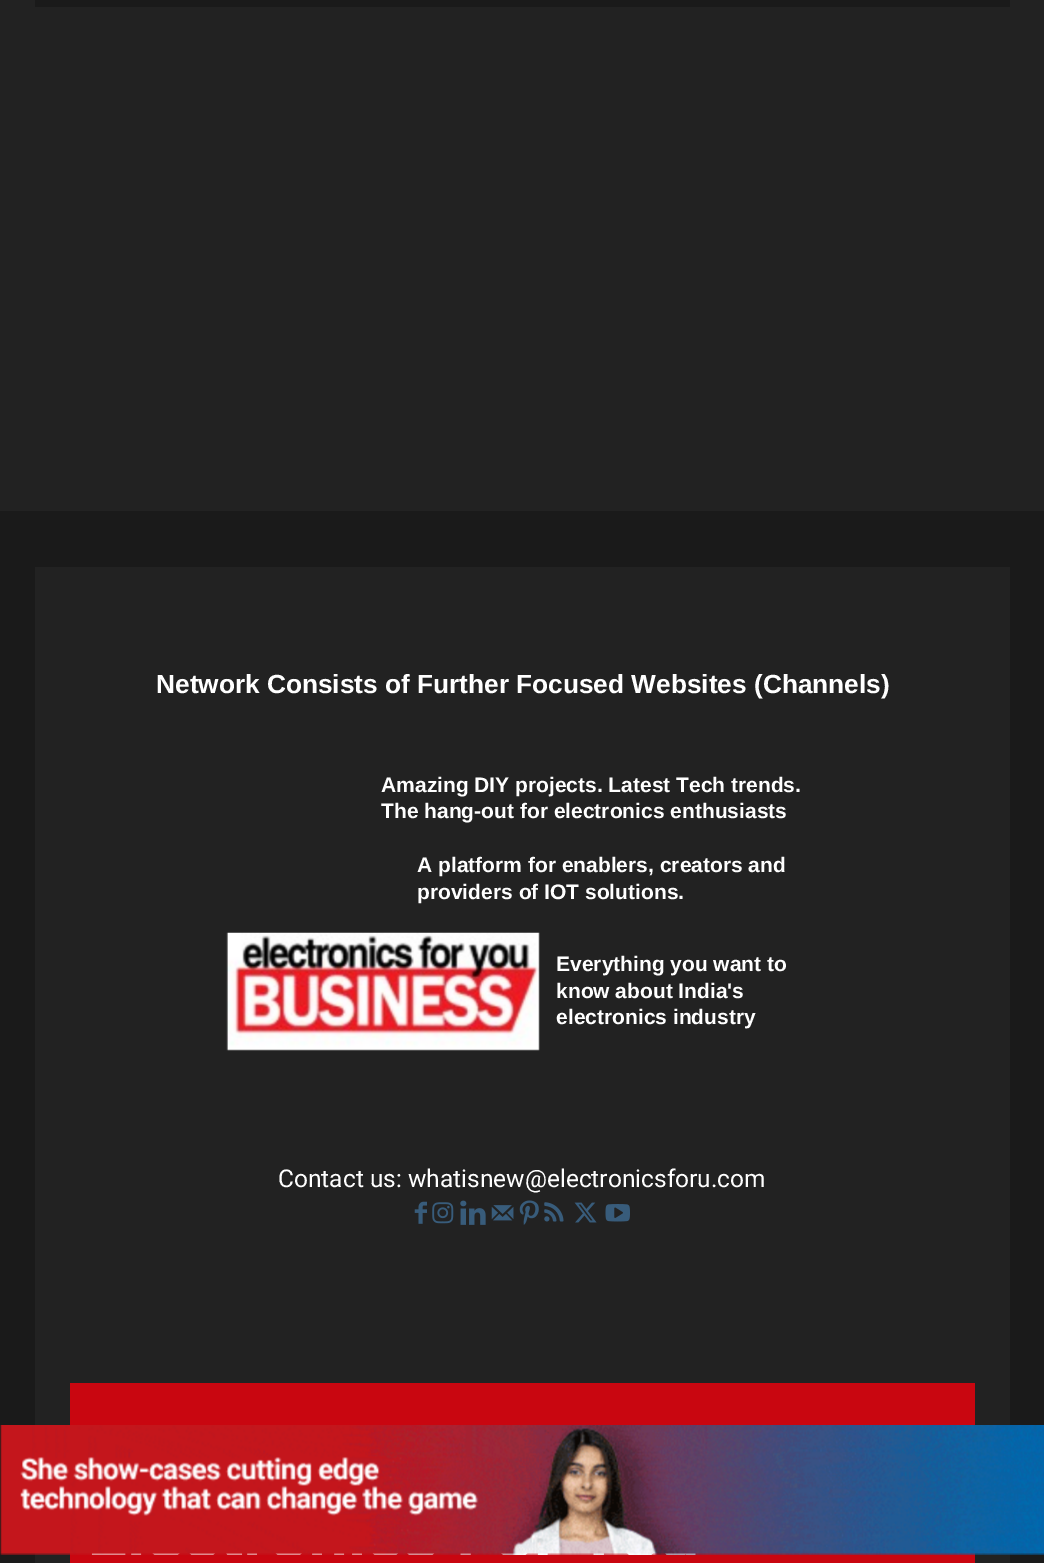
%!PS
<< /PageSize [1044 1563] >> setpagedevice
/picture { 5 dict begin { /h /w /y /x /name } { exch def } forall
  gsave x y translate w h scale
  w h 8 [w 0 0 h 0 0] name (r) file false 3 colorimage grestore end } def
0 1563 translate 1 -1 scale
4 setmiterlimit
0.102 setgray
0 0 1044 1563 rectfill
0.133 setgray
0 0 1044 511 rectfill
0.102 setgray
35 0 975 7 rectfill
0.133 setgray
35 567 975 996 rectfill
/LiberationSans-Bold [26.25 0 0 -26.25 0 0] selectfont
1 setgray
156 693 moveto (Network Consists of Further Focused Websites \(Channels\)) show
/LiberationSans-Bold [21 0 0 -21 0 0] selectfont
381 792 moveto (Amazing DIY projects. Latest Tech trends.) show
381 818 moveto (The hang-out for electronics enthusiasts) show
417 872 moveto (A platform for enablers, creators and) show
417 899 moveto (providers of IOT solutions.) show
(img1.rgb) 226 932 314 119 picture
556 971 moveto (Everything you want to) show
556 998 moveto (know about India's) show
556 1024 moveto (electronics industry) show
/Roboto-Regular [24.5 0 0 -24.5 0 0] selectfont
278 1187 moveto (Contact us: whatisnew@electronicsforu.com) show
(img2.rgb) 414 1201 13 23 picture
(img3.rgb) 432 1202 22 22 picture
(img4.rgb) 460 1200 26 25 picture
(img5.rgb) 491 1205 23 16 picture
(img6.rgb) 519 1200 20 25 picture
(img7.rgb) 544 1202 20 20 picture
(img8.rgb) 574 1202 23 21 picture
(img9.rgb) 605 1204 25 18 picture
0.788 0.024 0.063 setrgbcolor
70 1383 905 180 rectfill
(img10.rgb) 0 1425 1044 130 picture
showpage
